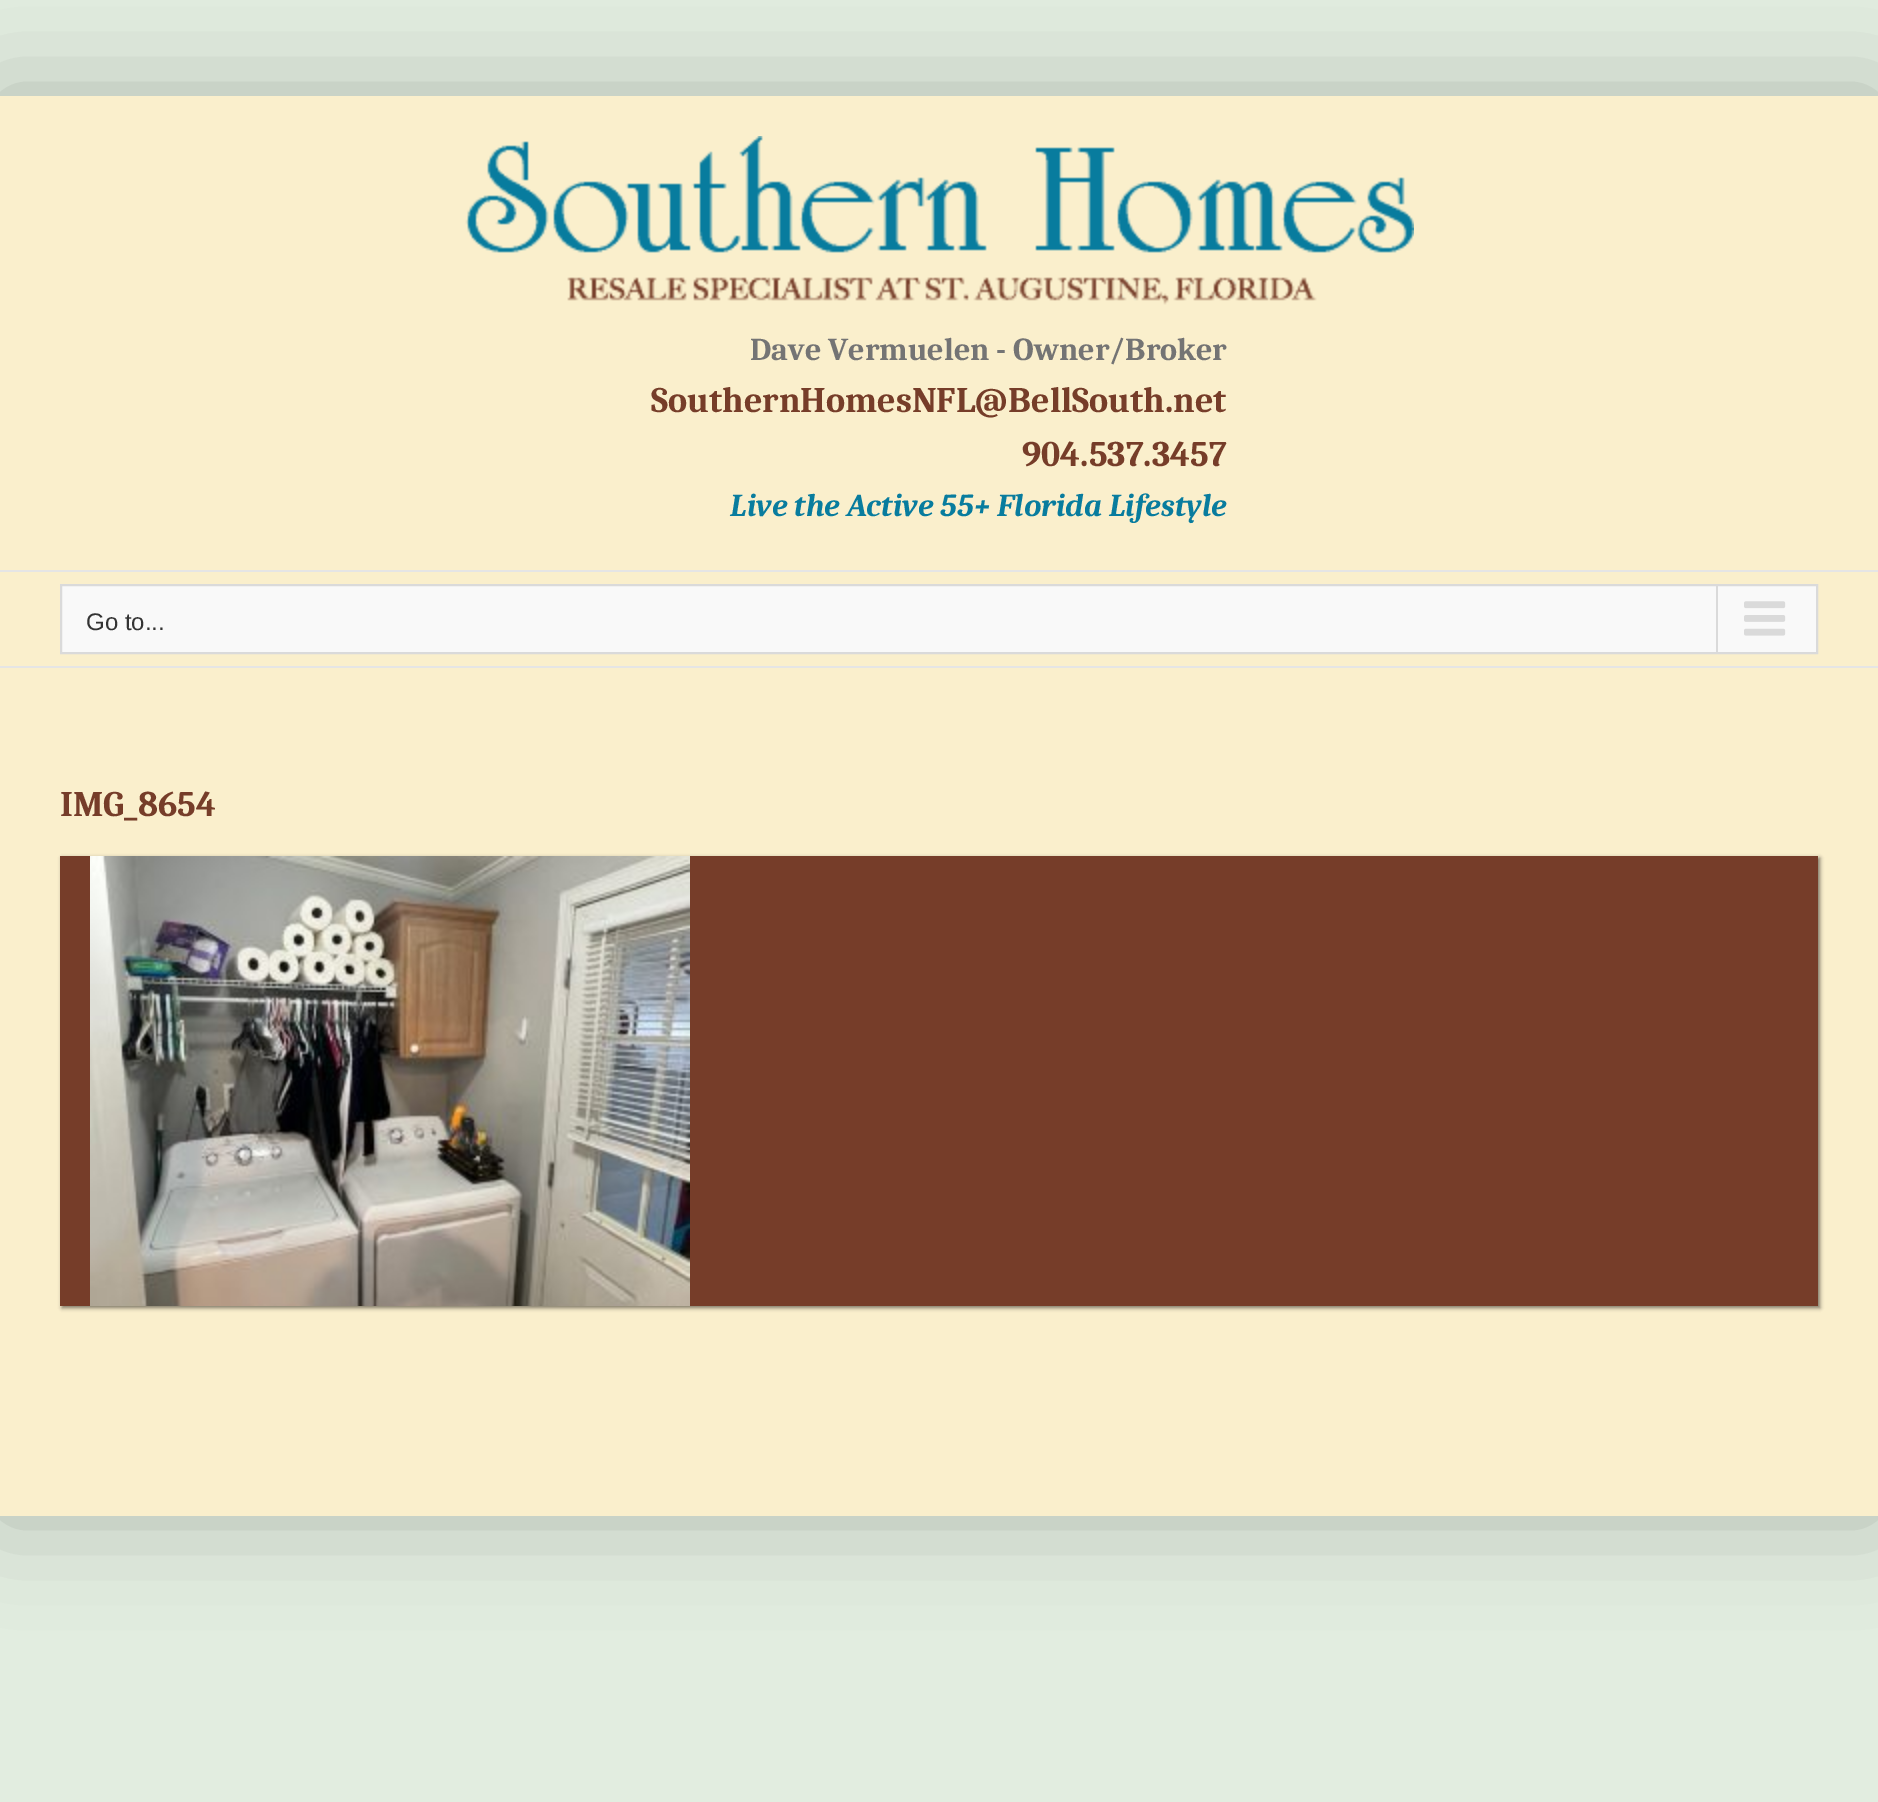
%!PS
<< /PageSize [1878 1802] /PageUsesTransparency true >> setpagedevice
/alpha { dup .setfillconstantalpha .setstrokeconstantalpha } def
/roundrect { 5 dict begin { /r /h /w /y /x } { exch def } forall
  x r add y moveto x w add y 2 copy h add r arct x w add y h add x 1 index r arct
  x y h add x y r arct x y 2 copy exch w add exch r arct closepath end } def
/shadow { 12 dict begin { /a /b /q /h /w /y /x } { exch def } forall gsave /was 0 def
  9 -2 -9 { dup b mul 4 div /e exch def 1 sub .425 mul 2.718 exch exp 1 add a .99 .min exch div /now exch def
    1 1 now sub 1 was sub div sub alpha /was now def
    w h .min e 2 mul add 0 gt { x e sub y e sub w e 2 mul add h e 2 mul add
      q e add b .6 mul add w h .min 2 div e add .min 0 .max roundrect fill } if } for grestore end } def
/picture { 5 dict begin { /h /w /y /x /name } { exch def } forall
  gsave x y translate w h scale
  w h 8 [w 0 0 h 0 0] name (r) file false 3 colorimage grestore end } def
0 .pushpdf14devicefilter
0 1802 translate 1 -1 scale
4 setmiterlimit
0.886 0.929 0.878 setrgbcolor
0 0 1878 1802 rectfill
0 setgray
-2 94 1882 1424 0 50 0.22 shadow
0.98 0.937 0.8 setrgbcolor
0 96 1878 474 rectfill
0.898 setgray
0 570 1878 2 rectfill
(img1.rgb) 465 136 949 169 picture
/Caladea-Bold [32 0 0 -32 0 0] selectfont
0.455 setgray
750 360 moveto (Dave Vermuelen - Owner/Broker) show
/Caladea-Bold [36 0 0 -36 0 0] selectfont
0.463 0.239 0.161 setrgbcolor
651 412 moveto (SouthernHomesNFL@BellSouth.net) show
1022 466 moveto (904.537.3457) show
/Caladea-BoldItalic [32 0 0 -32 0 0] selectfont
0.031 0.486 0.62 setrgbcolor
730 516 moveto (Live the Active 55+ Florida Lifestyle) show
0.98 0.937 0.8 setrgbcolor
0 572 1878 94 rectfill
0.898 setgray
0 666 1878 2 rectfill
0.976 setgray
newpath 61 585 moveto 1817 585 lineto 1817 653 lineto 61 653 lineto closepath gsave fill grestore
0.855 setgray
2 setlinewidth
stroke
/LiberationSans-Regular [24 0 0 -24 0 0] selectfont
0.2 setgray
86 630 moveto (Go to...) show
0.855 setgray
1716 586 2 66 rectfill
(img2.rgb) 1744 601 42 35 picture
0.98 0.937 0.8 setrgbcolor
0 668 1878 848 rectfill
/Caladea-Bold [36 0 0 -36 0 0] selectfont
0.463 0.239 0.161 setrgbcolor
60 816 moveto (IMG_8654) show
0 setgray
62 858 1758 450 0 2 0.5 shadow
0.463 0.239 0.161 setrgbcolor
60 856 1758 450 rectfill
(img3.rgb) 90 856 600 450 picture
.poppdf14devicefilter showpage
